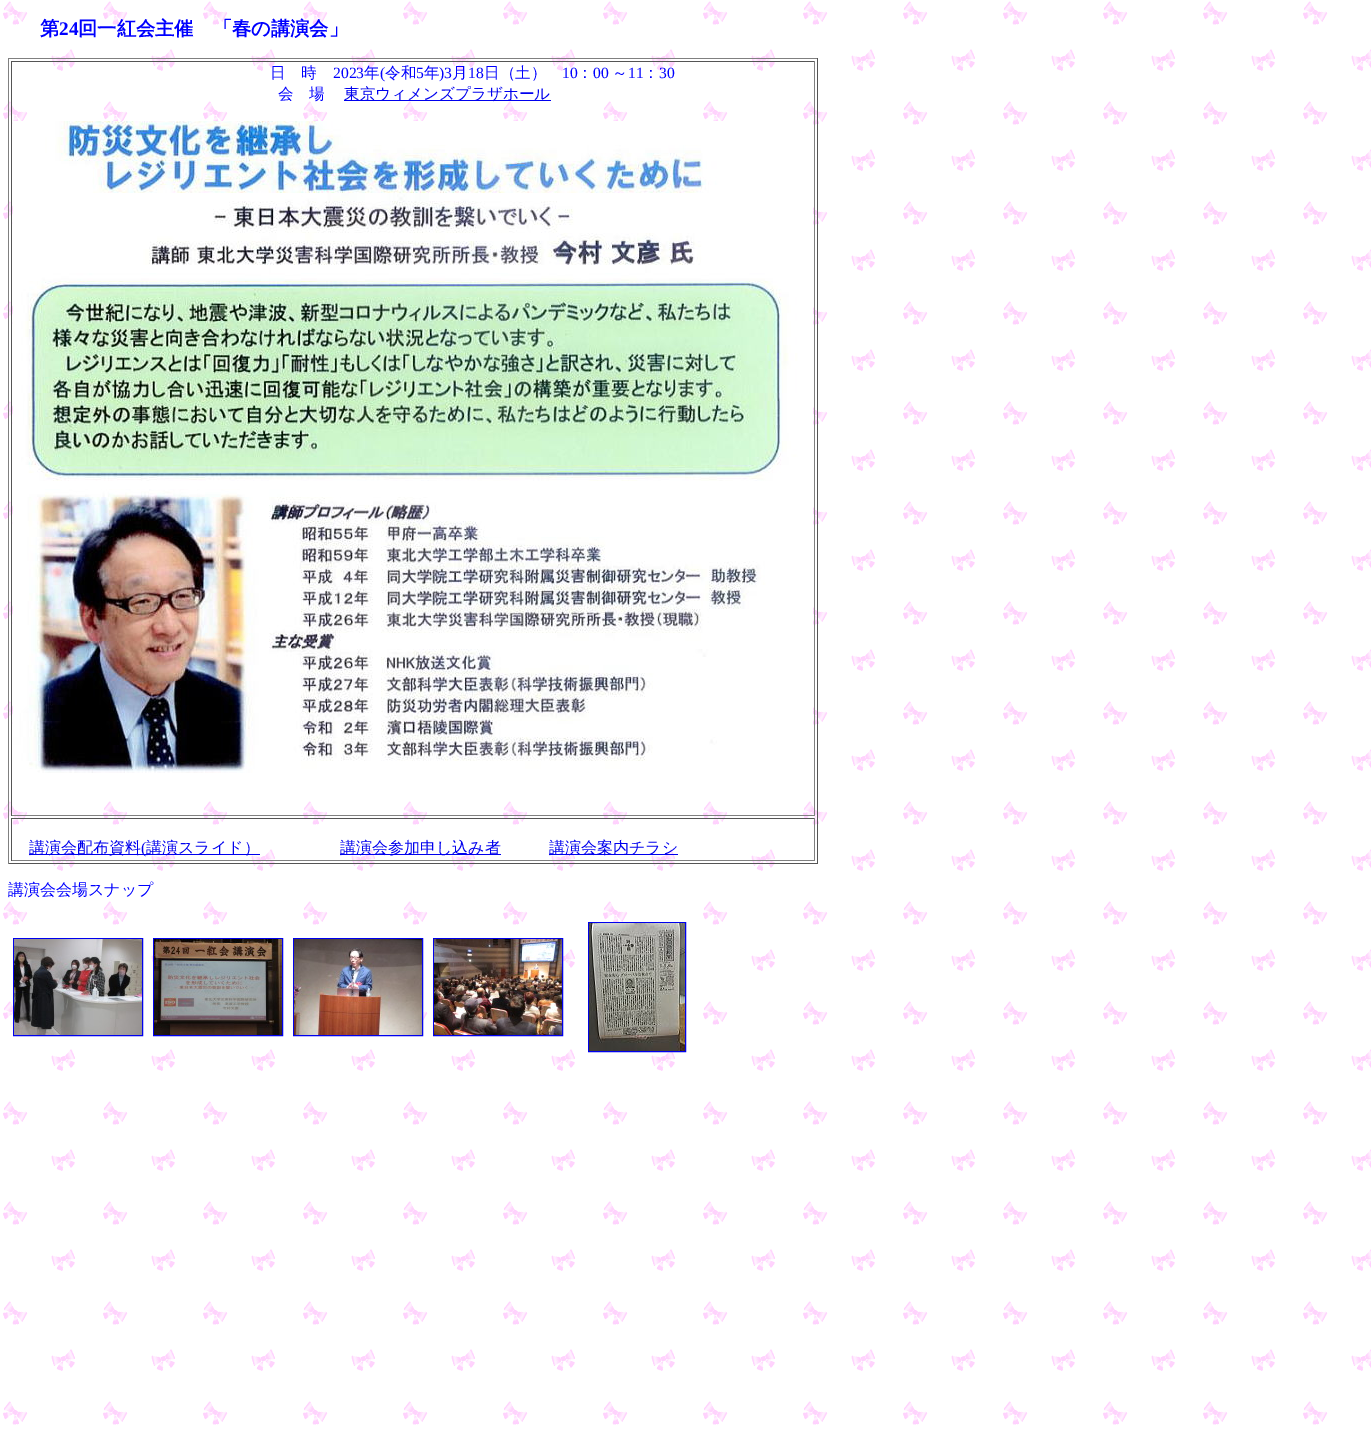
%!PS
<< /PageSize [1371 1433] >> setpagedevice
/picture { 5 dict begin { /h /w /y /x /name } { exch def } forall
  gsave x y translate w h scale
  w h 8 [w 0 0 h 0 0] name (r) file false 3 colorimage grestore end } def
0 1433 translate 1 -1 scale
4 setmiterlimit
1 setgray
0 0 1371 1433 rectfill
(img1.rgb) 3 1 1368 1424 picture
/WenQuanYiZenHei-Bold [19.25 0 0 -19.25 0 0] selectfont
0 0 1 setrgbcolor
40 35 moveto (第) show
/LiberationSerif-Bold [19.25 0 0 -19.25 0 0] selectfont
59 35 moveto (24) show
/WenQuanYiZenHei-Bold [19.25 0 0 -19.25 0 0] selectfont
78 35 moveto (回一紅会主催　「春の講演会」) show
0.502 setgray
8 58 810 1 rectfill
0.333 setgray
817 58 1 806 rectfill
8 863 810 1 rectfill
0.502 setgray
8 58 1 806 rectfill
0.333 setgray
11 61 804 1 rectfill
0.502 setgray
814 61 1 755 rectfill
11 815 804 1 rectfill
0.333 setgray
11 61 1 755 rectfill
/WenQuanYiZenHei-Medium [15.6 0 0 -15.6 0 0] selectfont
0 0 1 setrgbcolor
270 78 moveto (日　時) show
/LiberationSerif-Regular [15.6 0 0 -15.6 0 0] selectfont
333 78 moveto (2023) show
/WenQuanYiZenHei-Medium [15.6 0 0 -15.6 0 0] selectfont
364 78 moveto (年) show
/LiberationSerif-Regular [15.6 0 0 -15.6 0 0] selectfont
380 78 moveto (\() show
/WenQuanYiZenHei-Medium [15.6 0 0 -15.6 0 0] selectfont
385 78 moveto (令和) show
/LiberationSerif-Regular [15.6 0 0 -15.6 0 0] selectfont
416 78 moveto (5) show
/WenQuanYiZenHei-Medium [15.6 0 0 -15.6 0 0] selectfont
424 78 moveto (年) show
/LiberationSerif-Regular [15.6 0 0 -15.6 0 0] selectfont
439 78 moveto (\)3) show
/WenQuanYiZenHei-Medium [15.6 0 0 -15.6 0 0] selectfont
452 78 moveto (月) show
/LiberationSerif-Regular [15.6 0 0 -15.6 0 0] selectfont
468 78 moveto (18) show
/WenQuanYiZenHei-Medium [15.6 0 0 -15.6 0 0] selectfont
484 78 moveto (日（土）) show
/LiberationSerif-Regular [15.6 0 0 -15.6 0 0] selectfont
562 78 moveto (10) show
/WenQuanYiZenHei-Medium [15.6 0 0 -15.6 0 0] selectfont
577 78 moveto (：) show
/LiberationSerif-Regular [15.6 0 0 -15.6 0 0] selectfont
593 78 moveto (00) show
/WenQuanYiZenHei-Medium [15.6 0 0 -15.6 0 0] selectfont
612 78 moveto (～) show
/LiberationSerif-Regular [15.6 0 0 -15.6 0 0] selectfont
628 78 moveto (11) show
/WenQuanYiZenHei-Medium [15.6 0 0 -15.6 0 0] selectfont
643 78 moveto (：) show
/LiberationSerif-Regular [15.6 0 0 -15.6 0 0] selectfont
659 78 moveto (30) show
/WenQuanYiZenHei-Medium [15.6 0 0 -15.6 0 0] selectfont
278 99 moveto (会　場) show
0 0 0.933 setrgbcolor
344 100 207 1 rectfill
344 99 moveto (東京ウィメンズプラザホール) show
(img2.rgb) 13 121 800 652 picture
0.333 setgray
11 818 804 1 rectfill
0.502 setgray
814 818 1 43 rectfill
11 860 804 1 rectfill
0.333 setgray
11 818 1 43 rectfill
0 0 0.933 setrgbcolor
29 854 231 1 rectfill
/WenQuanYiZenHei-Medium [16 0 0 -16 0 0] selectfont
29 853 moveto (講演会配布資料) show
/LiberationSerif-Regular [16 0 0 -16 0 0] selectfont
141 853 moveto (\() show
/WenQuanYiZenHei-Medium [16 0 0 -16 0 0] selectfont
146 853 moveto (講演スライド）) show
340 854 161 1 rectfill
340 853 moveto (講演会参加申し込み者) show
549 854 129 1 rectfill
549 853 moveto (講演会案内チラシ) show
0 0 1 setrgbcolor
8 895 moveto (講演会会場スナップ) show
0 0 0.933 setrgbcolor
13.5 938.5 129 97 rectstroke
(img3.rgb) 14 939 128 96 picture
153.5 938.5 129 97 rectstroke
(img4.rgb) 154 939 128 96 picture
293.5 938.5 129 97 rectstroke
(img5.rgb) 294 939 128 96 picture
433.5 938.5 129 97 rectstroke
(img6.rgb) 434 939 128 96 picture
588.5 922.5 97 129 rectstroke
(img7.rgb) 589 923 96 128 picture
showpage
